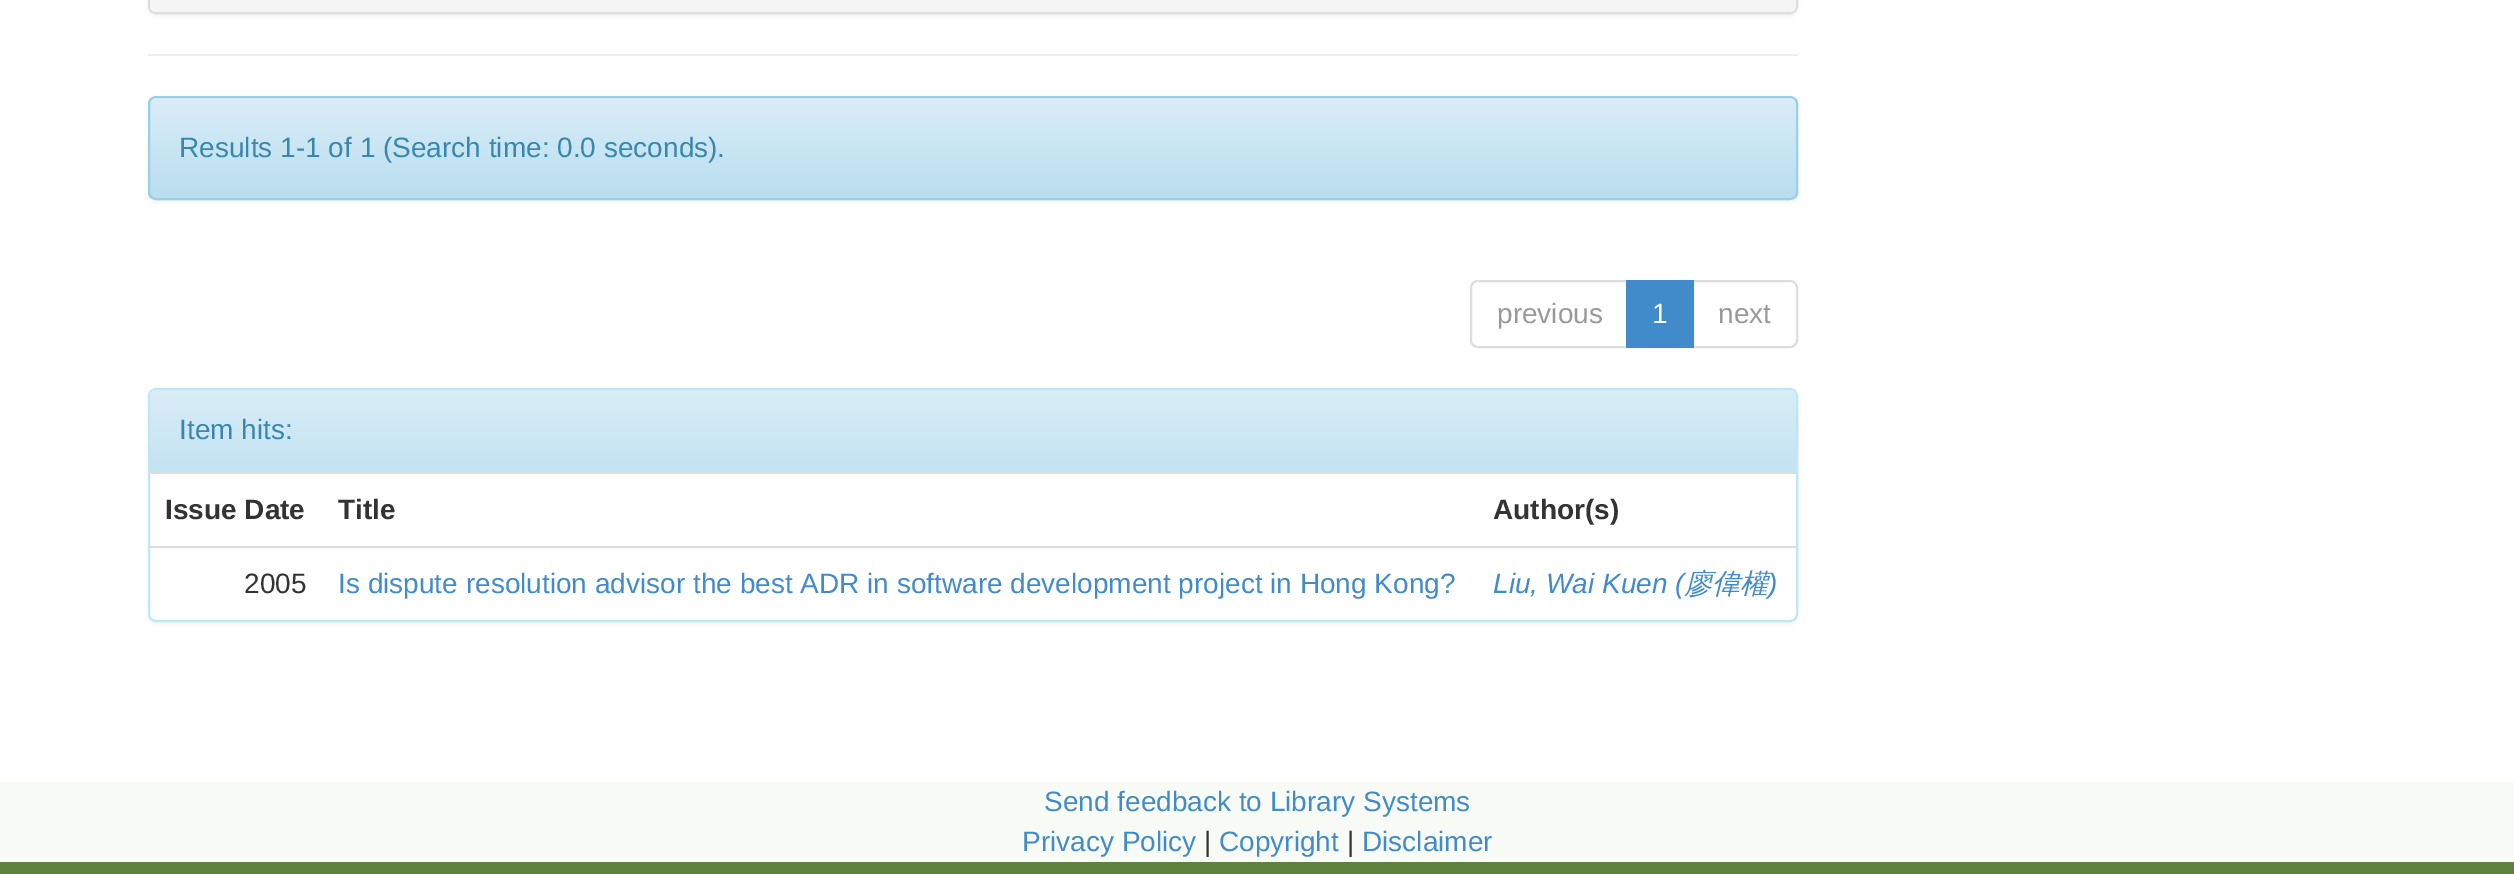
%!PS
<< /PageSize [2514 874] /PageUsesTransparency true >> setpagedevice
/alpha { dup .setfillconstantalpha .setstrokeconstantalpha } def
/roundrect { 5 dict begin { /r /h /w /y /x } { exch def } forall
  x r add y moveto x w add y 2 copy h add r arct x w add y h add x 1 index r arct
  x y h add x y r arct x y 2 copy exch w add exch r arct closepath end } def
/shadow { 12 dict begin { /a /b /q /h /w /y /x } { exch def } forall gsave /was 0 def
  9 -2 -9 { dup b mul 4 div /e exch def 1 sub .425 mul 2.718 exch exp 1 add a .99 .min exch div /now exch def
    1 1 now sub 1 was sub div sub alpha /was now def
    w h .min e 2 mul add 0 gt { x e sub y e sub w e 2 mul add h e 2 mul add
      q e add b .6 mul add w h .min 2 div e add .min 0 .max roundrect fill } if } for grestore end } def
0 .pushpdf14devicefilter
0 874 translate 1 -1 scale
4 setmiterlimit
1 setgray
0 0 2514 874 rectfill
0 setgray
148 -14 1650 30 8 2 0.05 shadow
0.867 setgray
2 setlinewidth
149 -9 1648 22 7 roundrect stroke
0.961 setgray
newpath 150 -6 moveto 1796 -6 lineto 1796 6 lineto 1796 9.5 1793.5 12 1790 12 curveto 156 12 lineto 152.5 12 150 9.5 150 6 curveto closepath fill
0.933 setgray
148 54 1650 2 rectfill
0 setgray
148 98 1650 104 8 2 0.05 shadow
gsave
148 96 1650 104 8 roundrect clip newpath
gsave newpath 148 98 moveto 1798 98 lineto 1798 198 lineto 148 198 lineto closepath clip newpath
<< /ShadingType 2 /ColorSpace /DeviceRGB /Coords [973 98 973 198] /Extend [true true] /Function << /FunctionType 2 /Domain [0 1] /C0 [0.851 0.929 0.969] /C1 [0.725 0.871 0.941] /N 1 >> >> shfill grestore
grestore
0.886 0.945 0.976 setrgbcolor
newpath 156 100 moveto 1790 100 lineto 1793 100 1796 103 1796 106 curveto 1796 102 1795 98 1790 98 curveto 156 98 lineto 151 98 150 102 150 106 curveto 150 103 153 100 156 100 curveto closepath fill
0.604 0.812 0.918 setrgbcolor
149 97 1648 102 7 roundrect stroke
/LiberationSans-Regular [28 0 0 -28 0 0] selectfont
0.227 0.529 0.678 setrgbcolor
179 157 moveto (Results 1-1 of 1 \(Search time: 0.0 seconds\).) show
0.867 setgray
newpath 1478 281 moveto 1627 281 lineto 1627 347 lineto 1478 347 lineto 1474 347 1471 344 1471 340 curveto 1471 288 lineto 1471 284 1474 281 1478 281 curveto closepath stroke
0.6 setgray
1497 323 moveto (previous) show
0.867 setgray
newpath 1693 281 moveto 1790 281 lineto 1794 281 1797 284 1797 288 curveto 1797 340 lineto 1797 344 1794 347 1790 347 curveto 1693 347 lineto closepath stroke
0.259 0.545 0.792 setrgbcolor
1626 280 68 68 rectfill
1 setgray
1652 323 moveto (1) show
0.6 setgray
1718 323 moveto (next) show
0 setgray
148 390 1650 234 8 2 0.05 shadow
1 setgray
149 389 1648 232 7 roundrect gsave fill grestore
0.737 0.91 0.945 setrgbcolor
stroke
gsave newpath 156 390 moveto 1790 390 lineto 1793.5 390 1796 392.5 1796 396 curveto 1796 470 lineto 150 470 lineto 150 396 lineto 150 392.5 152.5 390 156 390 curveto closepath clip newpath
<< /ShadingType 2 /ColorSpace /DeviceRGB /Coords [973 390 973 470] /Extend [true true] /Function << /FunctionType 2 /Domain [0 1] /C0 [0.851 0.929 0.969] /C1 [0.769 0.89 0.953] /N 1 >> >> shfill grestore
150 470 1646 2 rectfill
0.227 0.529 0.678 setrgbcolor
179 439 moveto (Item hits:) show
/LiberationSans-Bold [28 0 0 -28 0 0] selectfont
0.2 setgray
165 519 moveto (Issue Date) show
338 519 moveto (Title) show
0.867 setgray
148 472 1648 2 rectfill
0.2 setgray
1493 519 moveto (Author\(s\)) show
/LiberationSans-Regular [28 0 0 -28 0 0] selectfont
244 593 moveto (2005) show
0.259 0.545 0.792 setrgbcolor
338 593 moveto (Is dispute resolution advisor the best ADR in software development project in Hong Kong?) show
0.867 setgray
148 546 1648 2 rectfill
/LiberationSans-Italic [28 0 0 -28 0 0] selectfont
0.259 0.545 0.792 setrgbcolor
1493 593 moveto (Liu, Wai Kuen \() show
/WenQuanYiZenHei-MediumItalic [28 0 0 -28 0 0] selectfont
1684 593 moveto (廖偉權) show
/LiberationSans-Italic [28 0 0 -28 0 0] selectfont
1768 593 moveto (\)) show
0.973 0.984 0.961 setrgbcolor
0 782 2514 80 rectfill
0.373 0.506 0.243 setrgbcolor
0 862 2514 12 rectfill
/LiberationSans-Regular [28 0 0 -28 0 0] selectfont
0.259 0.545 0.792 setrgbcolor
1044 811 moveto (Send feedback to Library Systems) show
1022 851 moveto (Privacy Policy) show
0.2 setgray
1204 851 moveto (|) show
0.259 0.545 0.792 setrgbcolor
1219 851 moveto (Copyright) show
0.2 setgray
1347 851 moveto (|) show
0.259 0.545 0.792 setrgbcolor
1362 851 moveto (Disclaimer) show
.poppdf14devicefilter showpage
